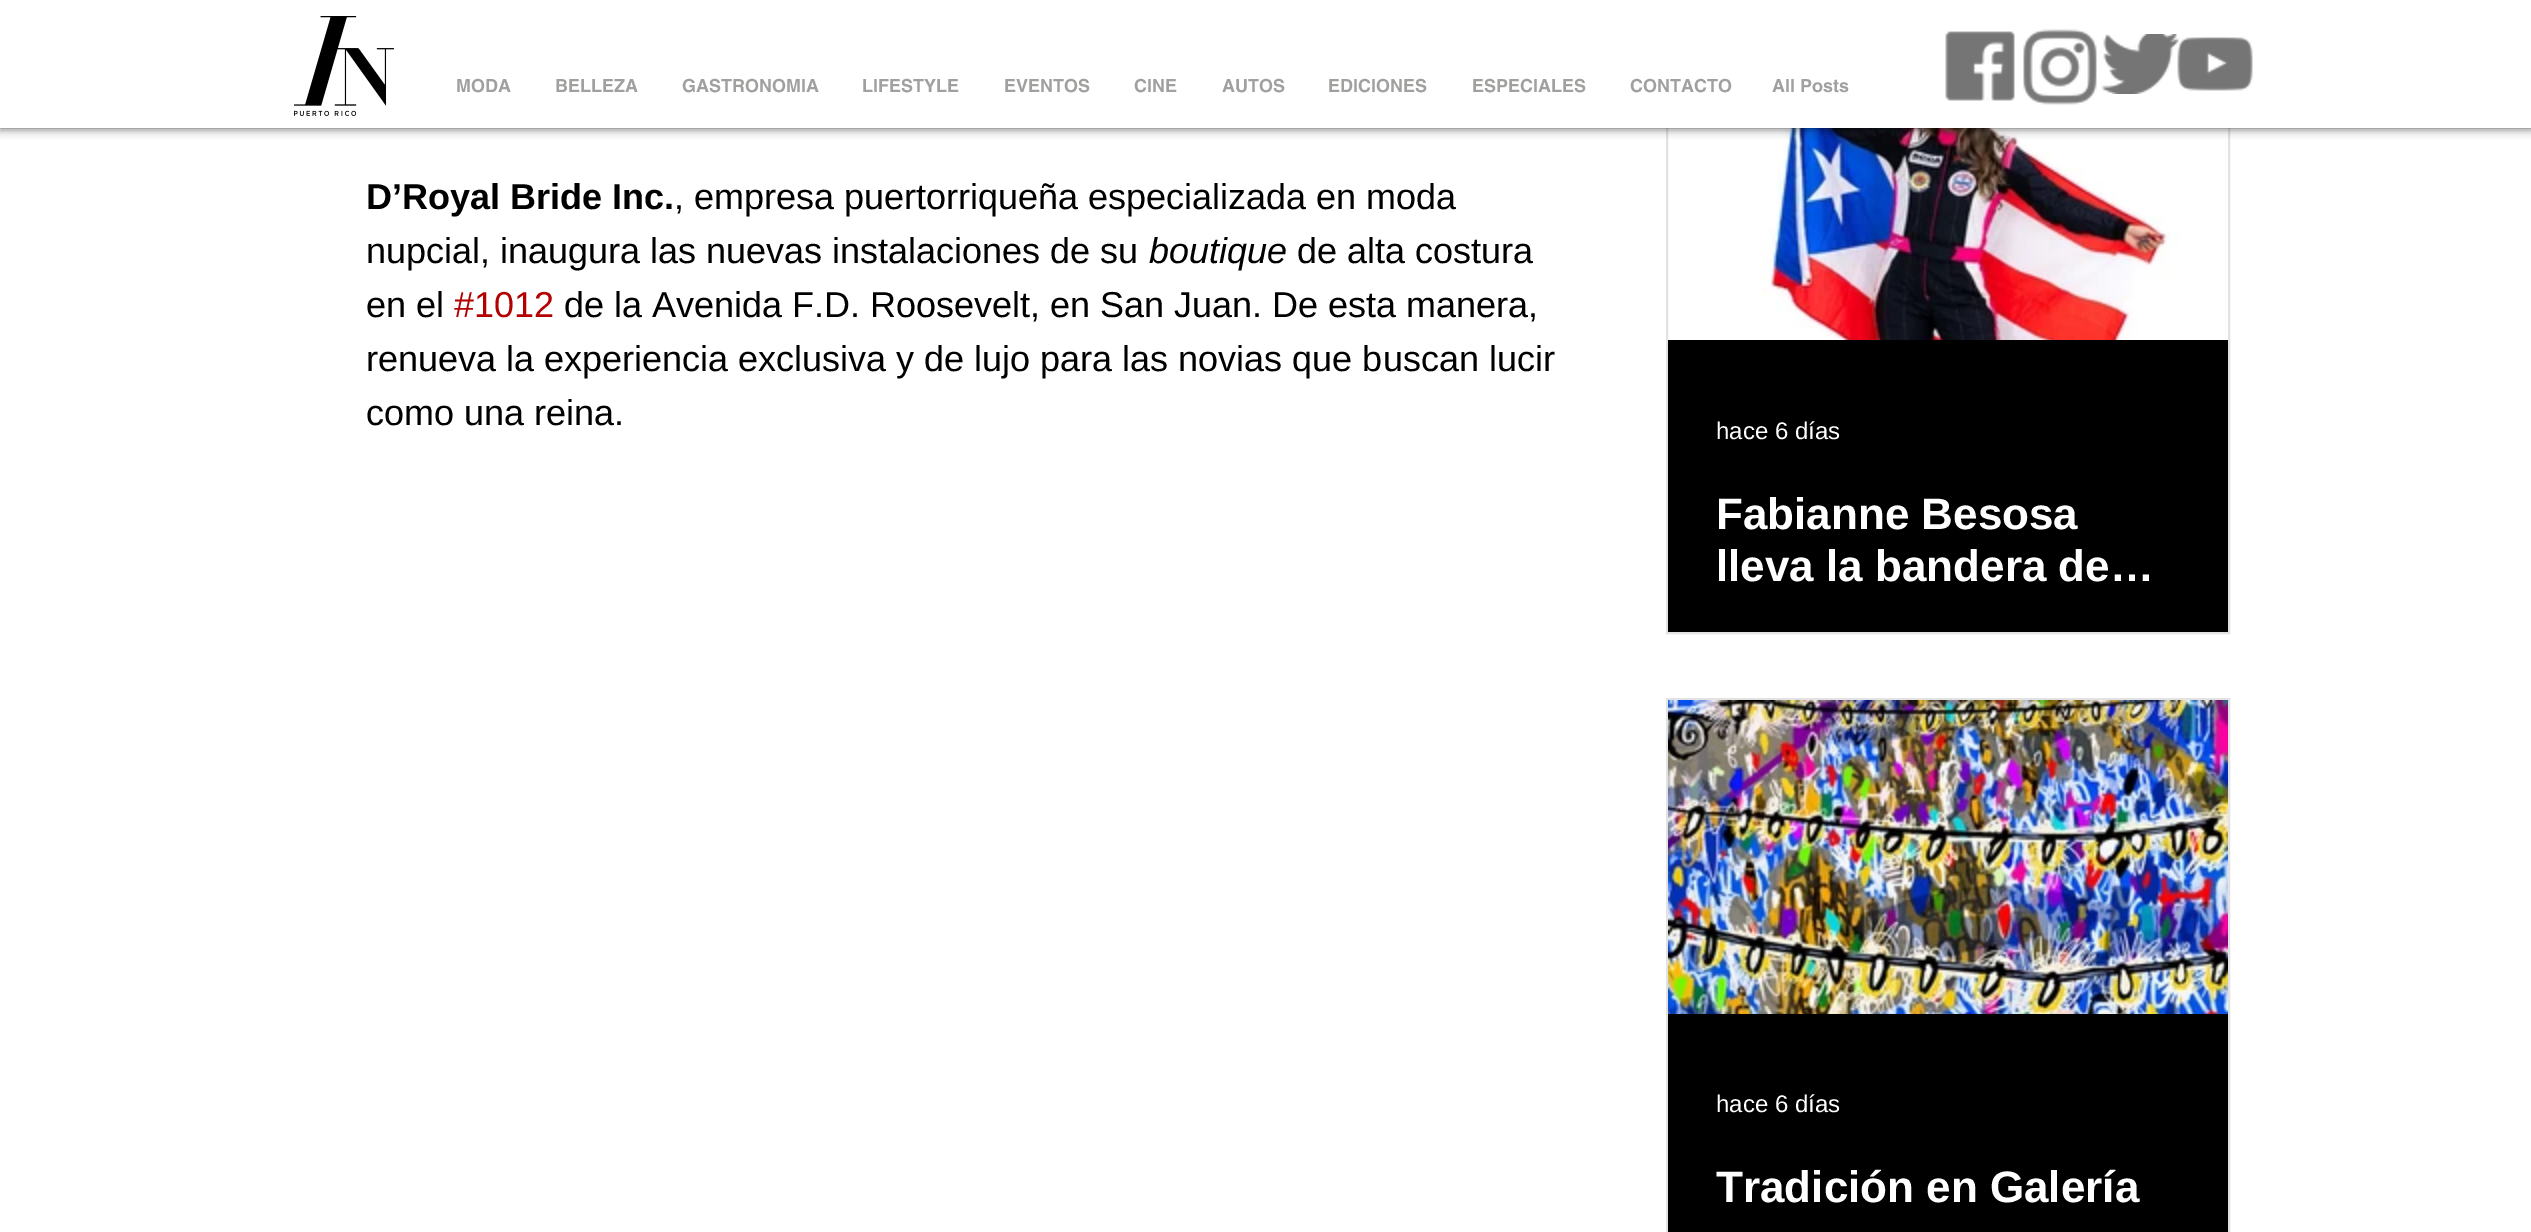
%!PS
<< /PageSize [2531 1232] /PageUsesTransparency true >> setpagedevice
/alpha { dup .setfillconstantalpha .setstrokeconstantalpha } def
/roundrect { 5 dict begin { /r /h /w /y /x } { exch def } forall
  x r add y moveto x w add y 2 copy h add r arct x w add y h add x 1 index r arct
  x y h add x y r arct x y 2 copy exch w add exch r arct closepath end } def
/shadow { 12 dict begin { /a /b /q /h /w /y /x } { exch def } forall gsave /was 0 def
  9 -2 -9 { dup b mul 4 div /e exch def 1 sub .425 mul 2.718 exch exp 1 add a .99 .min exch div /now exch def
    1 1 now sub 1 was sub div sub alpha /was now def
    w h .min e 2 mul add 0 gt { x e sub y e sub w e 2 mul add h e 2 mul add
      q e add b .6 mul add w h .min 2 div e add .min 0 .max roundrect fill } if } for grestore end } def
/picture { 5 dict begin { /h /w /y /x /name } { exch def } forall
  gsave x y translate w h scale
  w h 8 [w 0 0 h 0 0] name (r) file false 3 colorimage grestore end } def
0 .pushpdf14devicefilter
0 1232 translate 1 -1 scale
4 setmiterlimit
1 setgray
0 0 2531 1232 rectfill
0.886 setgray
2 setlinewidth
1667 27 562 606 rectstroke
(img6.rgb) 1717 128 495 212 picture
0 setgray
0 0 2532 128 0 5 0.7 shadow
1 setgray
0 0 2531 128 rectfill
(img1.rgb) 294 16 100 100 picture
/helvetica-Bold [18 0 0 -18 0 0] selectfont
0.627 0.627 0.624 setrgbcolor
456 92 moveto (MODA) show
555 92 moveto (BELLEZA) show
682 92 moveto (GASTRONOMIA) show
862 92 moveto (LIFESTYLE) show
1004 92 moveto (EVENTOS) show
1134 92 moveto (CINE) show
1222 92 moveto (AUTOS) show
1328 92 moveto (EDICIONES) show
1472 92 moveto (ESPECIALES) show
1630 92 moveto (CONTACTO) show
1772 92 moveto (All Posts) show
(img2.rgb) 1945 31 70 70 picture
(img3.rgb) 2023 29 74 76 picture
(img4.rgb) 2101 34 79 60 picture
(img5.rgb) 2177 37 76 54 picture
/LiberationSans-Bold [36 0 0 -36 0 0] selectfont
0 setgray
366 209 moveto (D’Royal Bride Inc.) show
/LiberationSans-Regular [36 0 0 -36 0 0] selectfont
674 209 moveto (, empresa puertorriqueña especializada en moda) show
366 263 moveto (nupcial, inaugura las nuevas instalaciones de su) show
/LiberationSans-Italic [36 0 0 -36 0 0] selectfont
1149 263 moveto (boutique) show
/LiberationSans-Regular [36 0 0 -36 0 0] selectfont
1297 263 moveto (de alta costura) show
366 317 moveto (en el) show
0.702 0 0 setrgbcolor
454 317 moveto (#1012) show
0 setgray
564 317 moveto (de la Avenida F.D. Roosevelt, en San Juan. De esta manera,) show
366 371 moveto (renueva la experiencia exclusiva y de lujo para las novias que buscan lucir) show
366 425 moveto (como una reina.) show
1668 340 560 292 rectfill
/LiberationSans-Regular [24 0 0 -24 0 0] selectfont
1 setgray
1716 439 moveto (hace 6 días) show
/LiberationSans-Bold [44 0 0 -44 0 0] selectfont
1716 529 moveto (Fabianne Besosa) show
1716 581 moveto (lleva la bandera de…) show
0.886 setgray
1667 699 562 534 rectstroke
(img7.rgb) 1668 700 560 314 picture
0 setgray
1668 1014 560 218 rectfill
/LiberationSans-Regular [24 0 0 -24 0 0] selectfont
1 setgray
1716 1112 moveto (hace 6 días) show
/LiberationSans-Bold [44 0 0 -44 0 0] selectfont
1716 1202 moveto (Tradición en Galería) show
.poppdf14devicefilter showpage
